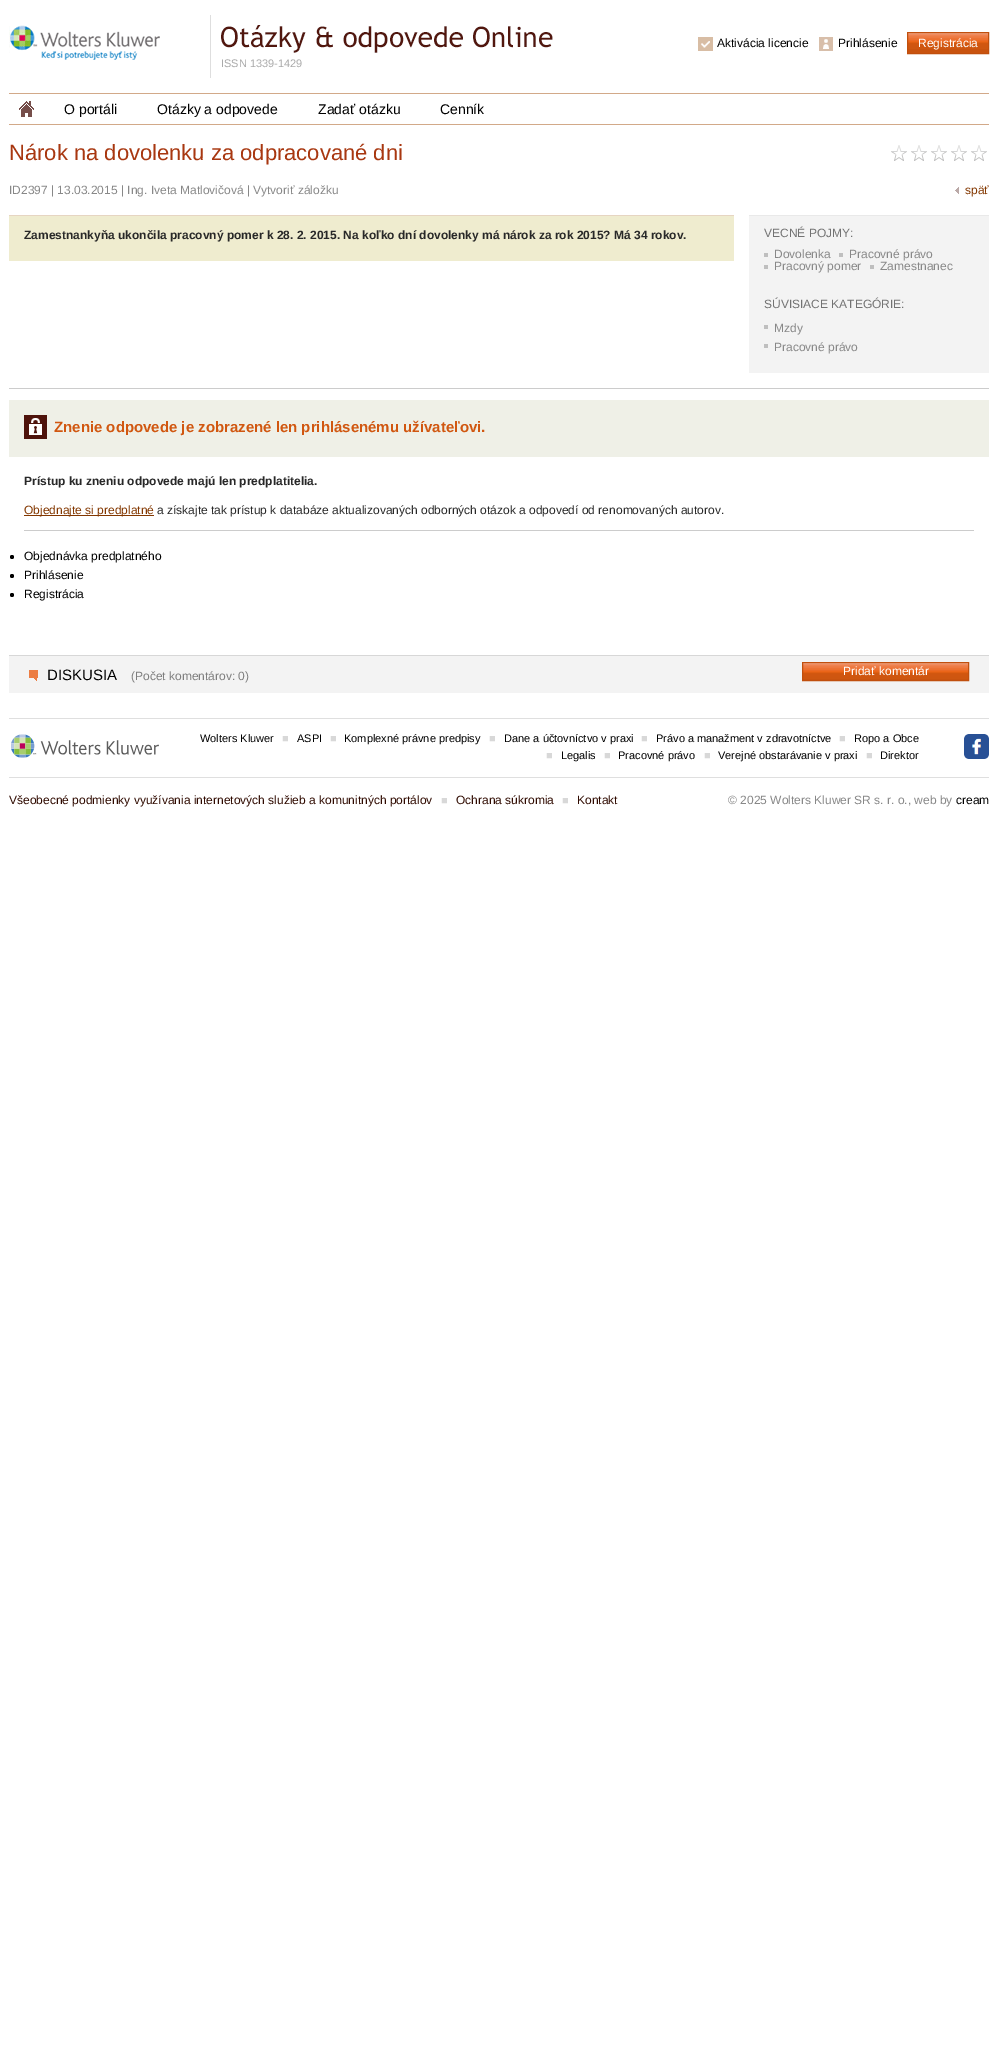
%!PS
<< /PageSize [998 2072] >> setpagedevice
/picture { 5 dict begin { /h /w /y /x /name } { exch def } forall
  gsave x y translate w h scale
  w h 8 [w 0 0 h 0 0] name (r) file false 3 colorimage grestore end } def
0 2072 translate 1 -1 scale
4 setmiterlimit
1 setgray
0 0 998 2072 rectfill
(img1.rgb) 9 25 151 35 picture
(img2.rgb) 698 37 15 14 picture
/LiberationSans-Regular [12 0 0 -12 0 0] selectfont
0 setgray
717 47 moveto (Aktivácia licencie) show
(img3.rgb) 819 37 14 14 picture
838 47 moveto (Prihlásenie) show
0.788 0.325 0.059 setrgbcolor
908 49 80 4 rectfill
(img4.rgb) 908 33 80 16 picture
0.757 0.31 0.051 setrgbcolor
907.5 32.5 81 21 rectstroke
1 setgray
918 47 moveto (Registrácia) show
0.871 setgray
210 15 1 63 rectfill
(img5.rgb) 221 25 332 28 picture
/LiberationSans-Regular [11 0 0 -11 0 0] selectfont
0.667 setgray
221 67 moveto (ISSN 1339-1429) show
0.824 0.663 0.537 setrgbcolor
9 93 980 1 rectfill
9 124 980 1 rectfill
(img6.rgb) 19 101 15 16 picture
/LiberationSans-Regular [14 0 0 -14 0 0] selectfont
0 setgray
64 114 moveto (O portáli) show
157 114 moveto (Otázky a odpovede) show
318 114 moveto (Zadať otázku) show
440 114 moveto (Cenník) show
/LiberationSans-Regular [22 0 0 -22 0 0] selectfont
0.659 0.216 0.063 setrgbcolor
9 160 moveto (Nárok na dovolenku za odpracované dni) show
(img7.rgb) 891 145 8 16 picture
(img8.rgb) 899 145 8 16 picture
(img7.rgb) 911 145 8 16 picture
(img8.rgb) 919 145 8 16 picture
(img7.rgb) 931 145 8 16 picture
(img8.rgb) 939 145 8 16 picture
(img7.rgb) 951 145 8 16 picture
(img8.rgb) 959 145 8 16 picture
(img7.rgb) 971 145 8 16 picture
(img8.rgb) 979 145 8 16 picture
/LiberationSans-Regular [12 0 0 -12 0 0] selectfont
0.533 setgray
9 194 moveto (ID2397 | 13.03.2015 | Ing. Iveta Matlovičová | Vytvoriť záložku) show
(img9.rgb) 955 187 4 7 picture
0.514 0.216 0 setrgbcolor
965 194 moveto (späť) show
0.937 0.925 0.812 setrgbcolor
9 216 725 45 rectfill
0.902 0.835 0.761 setrgbcolor
9 215 725 1 rectfill
/LiberationSans-Bold [12 0 0 -12 0 0] selectfont
0.157 setgray
24 239 moveto (Zamestnankyňa ukončila pracovný pomer k 28. 2. 2015. Na koľko dní dovolenky má nárok za rok 2015? Má 34 rokov.) show
0.953 setgray
749 216 240 157 rectfill
0.914 setgray
749 215 240 1 rectfill
/LiberationSans-Regular [12 0 0 -12 0 0] selectfont
0.447 setgray
764 237 moveto (VECNÉ POJMY:) show
0.533 setgray
774 258 moveto (Dovolenka) show
0.749 setgray
764 253 4 4 rectfill
0.533 setgray
849 258 moveto (Pracovné právo) show
0.749 setgray
839 253 4 4 rectfill
0.533 setgray
774 270 moveto (Pracovný pomer) show
0.749 setgray
764 265 4 4 rectfill
0.533 setgray
880 270 moveto (Zamestnanec) show
0.749 setgray
870 265 4 4 rectfill
0.447 setgray
764 308 moveto (SÚVISIACE KATEGÓRIE:) show
0.749 setgray
764 325 4 4 rectfill
0.533 setgray
774 332 moveto (Mzdy) show
0.749 setgray
764 344 4 4 rectfill
0.533 setgray
774 351 moveto (Pracovné právo) show
0.8 setgray
9 388 980 1 rectfill
0.937 0.941 0.906 setrgbcolor
9 400 980 57 rectfill
(img10.rgb) 24 415 23 24 picture
/LiberationSans-Bold [15 0 0 -15 0 0] selectfont
0.82 0.341 0.063 setrgbcolor
54 432 moveto (Znenie odpovede je zobrazené len prihlásenému užívateľovi.) show
/LiberationSans-Bold [12 0 0 -12 0 0] selectfont
0.157 setgray
24 485 moveto (Prístup ku zneniu odpovede majú len predplatitelia.) show
0.514 0.216 0 setrgbcolor
24 515 130 1 rectfill
/LiberationSans-Regular [12 0 0 -12 0 0] selectfont
24 514 moveto (Objednajte si predplatné) show
0.157 setgray
157 514 moveto (a získajte tak prístup k databáze aktualizovaných odborných otázok a odpovedí od renomovaných autorov.) show
0.8 setgray
24 530 950 1 rectfill
0 setgray
newpath 12 557 2 0 360 arc closepath fill
24 560 moveto (Objednávka predplatného) show
newpath 12 576 2 0 360 arc closepath fill
24 579 moveto (Prihlásenie) show
newpath 12 595 2 0 360 arc closepath fill
24 598 moveto (Registrácia) show
0.953 setgray
9 656 980 37 rectfill
0.843 setgray
9 655 980 1 rectfill
(img11.rgb) 29 670 9 11 picture
/LiberationSans-Regular [15 0 0 -15 0 0] selectfont
0 setgray
47 680 moveto (DISKUSIA) show
/LiberationSans-Regular [12 0 0 -12 0 0] selectfont
0.494 setgray
131 680 moveto (\(Počet komentárov: 0\)) show
0.788 0.325 0.059 setrgbcolor
803 679 165 1 rectfill
(img12.rgb) 803 663 165 16 picture
0.757 0.31 0.051 setrgbcolor
802.5 662.5 166 18 rectstroke
1 setgray
843 675 moveto (Pridať komentár) show
0.875 setgray
9 718 980 1 rectfill
(img13.rgb) 11 734 148 24 picture
/LiberationSans-Regular [11 0 0 -11 0 0] selectfont
0 setgray
200 742 moveto (Wolters Kluwer) show
0.847 setgray
282 742 moveto (■) show
0 setgray
297 742 moveto (ASPI) show
0.847 setgray
330 742 moveto (■) show
0 setgray
344 742 moveto (Komplexné právne predpisy) show
0.847 setgray
489 742 moveto (■) show
0 setgray
504 742 moveto (Dane a účtovníctvo v praxi) show
0.847 setgray
641 742 moveto (■) show
0 setgray
656 742 moveto (Právo a manažment v zdravotníctve) show
0.847 setgray
839 742 moveto (■) show
0 setgray
854 742 moveto (Ropo a Obce) show
0.847 setgray
546 759 moveto (■) show
0 setgray
561 759 moveto (Legalis) show
0.847 setgray
604 759 moveto (■) show
0 setgray
618 759 moveto (Pracovné právo) show
0.847 setgray
704 759 moveto (■) show
0 setgray
718 759 moveto (Verejné obstarávanie v praxi) show
0.847 setgray
866 759 moveto (■) show
0 setgray
880 759 moveto (Direktor) show
0.875 setgray
9 777 980 1 rectfill
(img14.rgb) 964 734 25 25 picture
/LiberationSans-Regular [12 0 0 -12 0 0] selectfont
0.184 0.039 0 setrgbcolor
9 804 moveto (Všeobecné podmienky využívania internetových služieb a komunitných portálov) show
/LiberationSans-Regular [11 0 0 -11 0 0] selectfont
0.847 setgray
441 804 moveto (■) show
/LiberationSans-Regular [12 0 0 -12 0 0] selectfont
0.184 0.039 0 setrgbcolor
456 804 moveto (Ochrana súkromia) show
/LiberationSans-Regular [11 0 0 -11 0 0] selectfont
0.847 setgray
562 804 moveto (■) show
/LiberationSans-Regular [12 0 0 -12 0 0] selectfont
0.184 0.039 0 setrgbcolor
577 804 moveto (Kontakt) show
0.533 setgray
728 804 moveto (© 2025 Wolters Kluwer SR s. r. o., web by) show
0 setgray
956 804 moveto (cream) show
showpage
